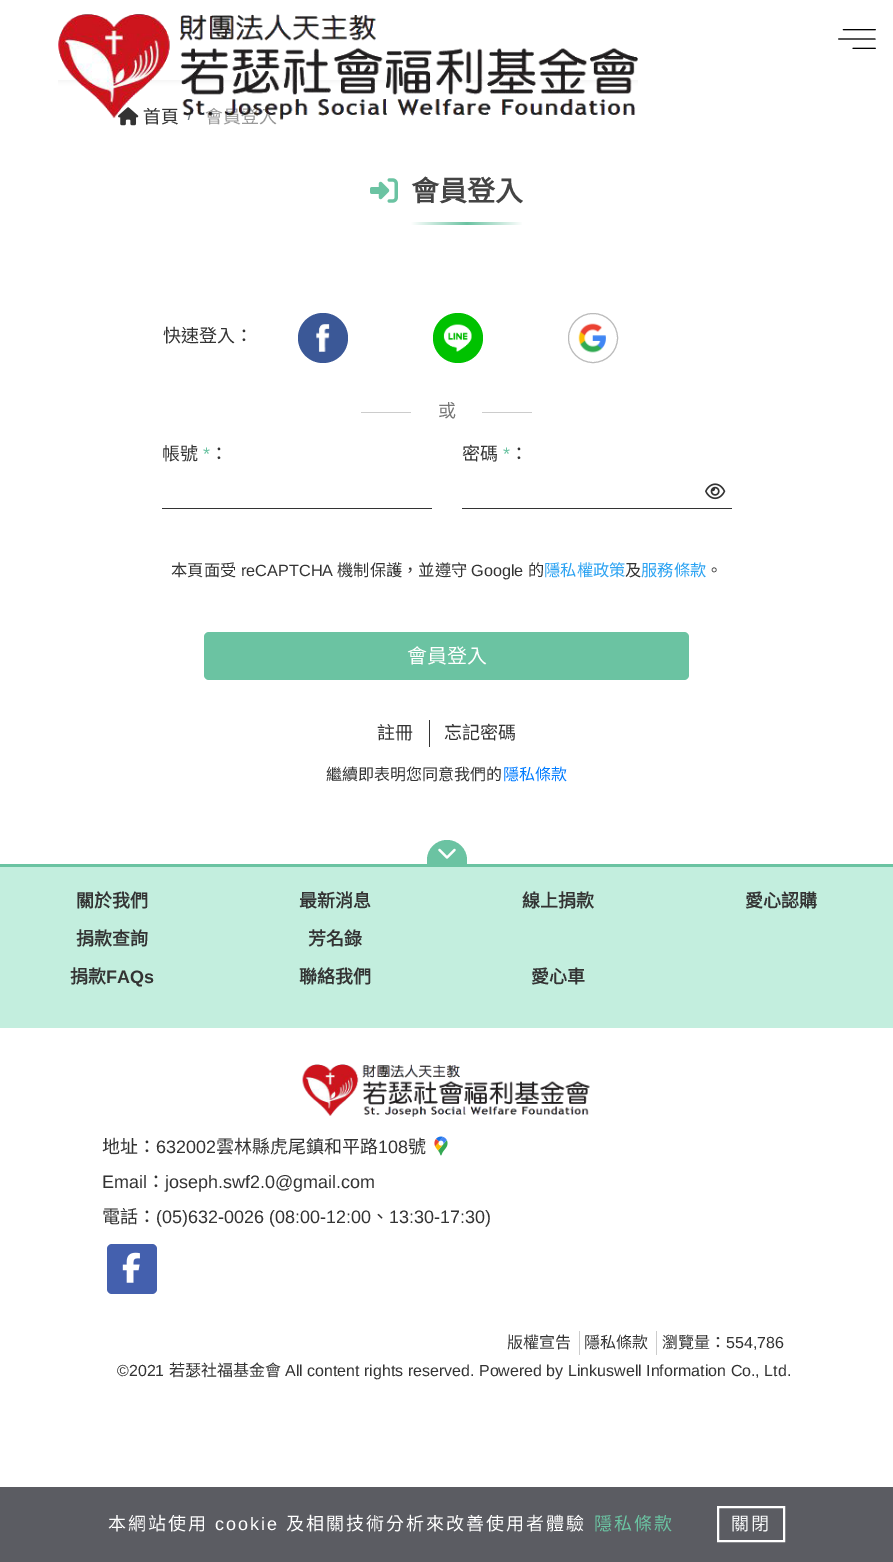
%!PS
<< /PageSize [893 1562] >> setpagedevice
/roundrect { 5 dict begin { /r /h /w /y /x } { exch def } forall
  x r add y moveto x w add y 2 copy h add r arct x w add y h add x 1 index r arct
  x y h add x y r arct x y 2 copy exch w add exch r arct closepath end } def
/picture { 5 dict begin { /h /w /y /x /name } { exch def } forall
  gsave x y translate w h scale
  w h 8 [w 0 0 h 0 0] name (r) file false 3 colorimage grestore end } def
0 1562 translate 1 -1 scale
4 setmiterlimit
1 setgray
0 0 893 1562 rectfill
(img3.rgb) 118 107 21 19 picture
/NotoSansTC-Thin [18 0 0 -18 0 0] selectfont
0.2 setgray
143 123 moveto (首頁) show
0.6 setgray
205 123 moveto (會員登入) show
(img1.rgb) 58 14 580 106 picture
(img2.rgb) 838 29 38 20 picture
(img4.rgb) 370 178 28 25 picture
/NotoSansTC-Bold [28 0 0 -28 0 0] selectfont
0.267 setgray
411 201 moveto (會員登入) show
gsave newpath 411 222 moveto 523 222 lineto 523 225 lineto 411 225 lineto closepath clip newpath
<< /ShadingType 2 /ColorSpace /DeviceRGB /Coords [411 224 523 224] /Extend [true true] /Function << /FunctionType 3 /Domain [0 1] /Functions [<< /FunctionType 2 /Domain [0 1] /C0 [1 1 1] /C1 [0.42 0.765 0.635] /N 1 >> << /FunctionType 2 /Domain [0 1] /C0 [0.42 0.765 0.635] /C1 [1 1 1] /N 1 >>] /Bounds [0.5] /Encode [0 1 0 1] >> >> shfill grestore
/NotoSansTC-Thin [18 0 0 -18 0 0] selectfont
0.2 setgray
163 342 moveto (快速登入：) show
0.231 0.345 0.592 setrgbcolor
newpath 323 338 25 0 360 arc closepath fill
(img5.rgb) 316 324 14 28 picture
0 0.761 0 setrgbcolor
newpath 458 338 25 0 360 arc closepath fill
(img6.rgb) 443 324 29 28 picture
0.733 setgray
newpath 593 338 24.5 0 360 arc closepath stroke
(img7.rgb) 578 323 28 30 picture
0.8 setgray
361 412 50 1 rectfill
0.467 setgray
438 417 moveto (或) show
0.8 setgray
482 412 50 1 rectfill
0.2 setgray
162 460 moveto (帳號) show
/LiberationSans-Regular [18 0 0 -18 0 0] selectfont
0.42 0.765 0.635 setrgbcolor
203 460 moveto (*) show
/NotoSansTC-Thin [18 0 0 -18 0 0] selectfont
0.2 setgray
210 460 moveto (：) show
162 508 270 1 rectfill
462 460 moveto (密碼) show
/LiberationSans-Regular [18 0 0 -18 0 0] selectfont
0.42 0.765 0.635 setrgbcolor
503 460 moveto (*) show
/NotoSansTC-Thin [18 0 0 -18 0 0] selectfont
0.2 setgray
510 460 moveto (：) show
(img8.rgb) 705 483 21 17 picture
462 508 270 1 rectfill
/NotoSansTC-Thin [16.25 0 0 -16.25 0 0] selectfont
171 576 moveto (本頁面受) show
/LiberationSans-Regular [16.25 0 0 -16.25 0 0] selectfont
241 576 moveto (reCAPTCHA) show
/NotoSansTC-Thin [16.25 0 0 -16.25 0 0] selectfont
337 576 moveto (機制保護，並遵守) show
/LiberationSans-Regular [16.25 0 0 -16.25 0 0] selectfont
471 576 moveto (Google) show
/NotoSansTC-Thin [16.25 0 0 -16.25 0 0] selectfont
528 576 moveto (的) show
0.173 0.639 0.949 setrgbcolor
544 576 moveto (隱私權政策) show
0.2 setgray
625 576 moveto (及) show
0.173 0.639 0.949 setrgbcolor
641 576 moveto (服務條款) show
0.2 setgray
706 576 moveto (。) show
0.42 0.765 0.635 setrgbcolor
204 632 485 48 5 roundrect fill
/NotoSansTC-Thin [20 0 0 -20 0 0] selectfont
1 setgray
407 663 moveto (會員登入) show
0.2 setgray
429 720 1 27 rectfill
/NotoSansTC-Thin [18 0 0 -18 0 0] selectfont
377 739 moveto (註冊) show
444 739 moveto (忘記密碼) show
/NotoSansTC-Thin [16 0 0 -16 0 0] selectfont
326 780 moveto (繼續即表明您同意我們的) show
0 0.482 1 setrgbcolor
503 780 moveto (隱私條款) show
0.42 0.765 0.635 setrgbcolor
0 864 893 3 rectfill
newpath 447 840 moveto 458 840 467 849 467 860 curveto 467 864 lineto 427 864 lineto 427 860 lineto 427 849 436 840 447 840 curveto closepath fill
(img9.rgb) 438 848 18 11 picture
0.765 0.933 0.871 setrgbcolor
0 867 893 161 rectfill
/NotoSansTC-Bold [18 0 0 -18 0 0] selectfont
0.2 setgray
76 907 moveto (關於我們) show
299 907 moveto (最新消息) show
522 907 moveto (線上捐款) show
745 907 moveto (愛心認購) show
76 945 moveto (捐款查詢) show
308 945 moveto (芳名錄) show
70 983 moveto (捐款) show
/LiberationSans-Bold [18 0 0 -18 0 0] selectfont
106 983 moveto (FAQs) show
/NotoSansTC-Bold [18 0 0 -18 0 0] selectfont
299 983 moveto (聯絡我們) show
531 983 moveto (愛心車) show
(img10.rgb) 302 1064 288 53 picture
/NotoSansTC-Thin [18 0 0 -18 0 0] selectfont
102 1153 moveto (地址：) show
/LiberationSans-Regular [18 0 0 -18 0 0] selectfont
156 1153 moveto (632002) show
/NotoSansTC-Thin [18 0 0 -18 0 0] selectfont
216 1153 moveto (雲林縣虎尾鎮和平路) show
/LiberationSans-Regular [18 0 0 -18 0 0] selectfont
378 1153 moveto (108) show
/NotoSansTC-Thin [18 0 0 -18 0 0] selectfont
408 1153 moveto (號) show
(img11.rgb) 434 1136 14 20 picture
/LiberationSans-Regular [18 0 0 -18 0 0] selectfont
102 1188 moveto (Email) show
/NotoSansTC-Thin [18 0 0 -18 0 0] selectfont
147 1188 moveto (：) show
/LiberationSans-Regular [18 0 0 -18 0 0] selectfont
165 1188 moveto (joseph.swf2.0@gmail.com) show
/NotoSansTC-Thin [18 0 0 -18 0 0] selectfont
102 1223 moveto (電話：) show
/LiberationSans-Regular [18 0 0 -18 0 0] selectfont
156 1223 moveto (\(05\)632-0026 \(08:00-12:00) show
/NotoSansTC-Thin [18 0 0 -18 0 0] selectfont
371 1223 moveto (、) show
/LiberationSans-Regular [18 0 0 -18 0 0] selectfont
389 1223 moveto (13:30-17:30\)) show
0.267 0.376 0.682 setrgbcolor
107 1244 50 50 5 roundrect fill
(img12.rgb) 122 1252 18 31 picture
0.8 setgray
579 1331 1 24 rectfill
/NotoSansTC-Thin [16 0 0 -16 0 0] selectfont
0.2 setgray
507 1348 moveto (版權宣告) show
0.8 setgray
656 1331 1 24 rectfill
0.2 setgray
584 1348 moveto (隱私條款) show
662 1348 moveto (瀏覽量：) show
/LiberationSans-Regular [16 0 0 -16 0 0] selectfont
726 1348 moveto (554,786) show
117 1376 moveto (©2021) show
/NotoSansTC-Thin [16 0 0 -16 0 0] selectfont
169 1376 moveto (若瑟社福基金會) show
/LiberationSans-Regular [16 0 0 -16 0 0] selectfont
285 1376 moveto (All content rights reserved. Powered by Linkuswell Information Co., Ltd.) show
0.357 0.361 0.384 setrgbcolor
0 1487 893 75 rectfill
/NotoSansTC-Thin [18 0 0 -18 0 0] selectfont
1 setgray
108 1530 moveto 2 0 (本網站使用) ashow
/LiberationSans-Regular [18 0 0 -18 0 0] selectfont
215 1530 moveto 2 0 (cookie) ashow
/NotoSansTC-Thin [18 0 0 -18 0 0] selectfont
286 1530 moveto 2 0 (及相關技術分析來改善使用者體驗) ashow
0.42 0.765 0.635 setrgbcolor
594 1530 moveto 2 0 (隱私條款) ashow
1 setgray
2 setlinewidth
718 1507 66 34 rectstroke
0.973 0.976 0.98 setrgbcolor
731 1530 moveto 2 0 (關閉) ashow
showpage
